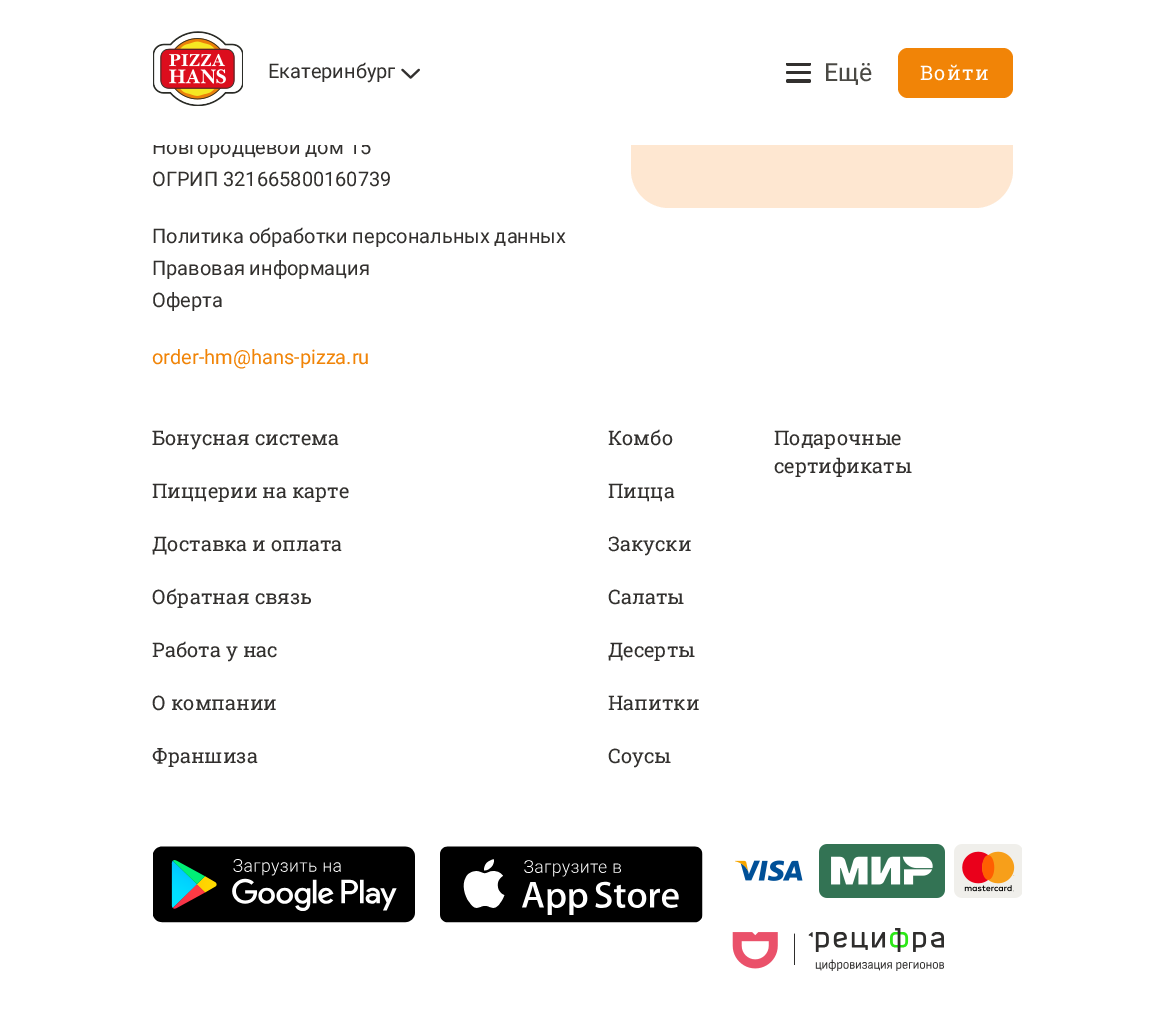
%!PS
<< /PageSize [1163 1021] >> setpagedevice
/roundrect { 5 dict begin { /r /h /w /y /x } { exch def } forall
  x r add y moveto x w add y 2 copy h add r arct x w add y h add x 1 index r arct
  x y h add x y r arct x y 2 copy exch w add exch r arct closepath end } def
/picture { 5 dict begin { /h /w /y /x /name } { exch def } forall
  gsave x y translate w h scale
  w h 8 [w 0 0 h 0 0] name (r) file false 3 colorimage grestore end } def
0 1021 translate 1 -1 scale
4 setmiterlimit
1 setgray
0 0 1163 1021 rectfill
0.996 0.906 0.82 setrgbcolor
631 -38 382 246 38 roundrect fill
/Roboto-Regular [20 0 0 -20 0 0] selectfont
0.196 0.188 0.18 setrgbcolor
152 154 moveto (Новгородцевой дом 15) show
1 setgray
153 0 860 145 rectfill
(img1.rgb) 153 31 90 75 picture
/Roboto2-Regular [20 0 0 -20 0 0] selectfont
0.196 0.188 0.18 setrgbcolor
268 78 moveto (Екатеринбург) show
1 setgray
395 67 1 2 rectfill
(img2.rgb) 401 68 19 11 picture
gsave
786 63 25 21 rectclip
0.196 0.188 0.18 setrgbcolor
786 62 25 4 2 roundrect fill
grestore
0.196 0.188 0.18 setrgbcolor
786 71 25 3 1.5 roundrect fill
786 79 25 4 2 roundrect fill
/Roboto2-Regular [25 0 0 -25 0 0] selectfont
0.29 0.286 0.267 setrgbcolor
824 81 moveto (Ещё) show
0.945 0.518 0.027 setrgbcolor
898 48 115 50 10 roundrect fill
/RobotoSlab-Regular [20 0 0 -20 0 0] selectfont
1 setgray
920 80 moveto 1.25 0 (Войти) ashow
/Roboto-Regular [20 0 0 -20 0 0] selectfont
0.196 0.188 0.18 setrgbcolor
152 186 moveto (ОГРИП 321665800160739) show
152 243 moveto (Политика обработки персональных данных) show
152 275 moveto (Правовая информация) show
152 307 moveto (Оферта) show
0.945 0.518 0.027 setrgbcolor
152 364 moveto (order-hm@hans-pizza.ru) show
/RobotoSlab-Regular [20 0 0 -20 0 0] selectfont
0.196 0.188 0.18 setrgbcolor
152 445 moveto (Бонусная система) show
152 498 moveto (Пиццерии на карте) show
152 551 moveto (Доставка и оплата) show
152 604 moveto (Обратная связь) show
152 657 moveto (Работа у нас) show
152 710 moveto (О компании) show
152 763 moveto (Франшиза) show
608 445 moveto (Комбо) show
774 445 moveto (Подарочные) show
774 473 moveto (сертификаты) show
608 498 moveto (Пицца) show
608 551 moveto (Закуски) show
608 604 moveto (Салаты) show
608 657 moveto (Десерты) show
608 710 moveto (Напитки) show
608 763 moveto (Соусы) show
(img3.rgb) 153 846 262 77 picture
(img4.rgb) 440 846 263 77 picture
(img5.rgb) 735 860 68 21 picture
(img6.rgb) 819 844 126 54 picture
(img7.rgb) 954 844 68 54 picture
(img8.rgb) 732 932 46 37 picture
gsave
794 928 1 43 rectclip
0.18 0.176 0.173 setrgbcolor
newpath 793.5 965 moveto 794 933.5 lineto 795 934 lineto 795 965 lineto closepath eofill
grestore
(img9.rgb) 808 928 136 43 picture
showpage
